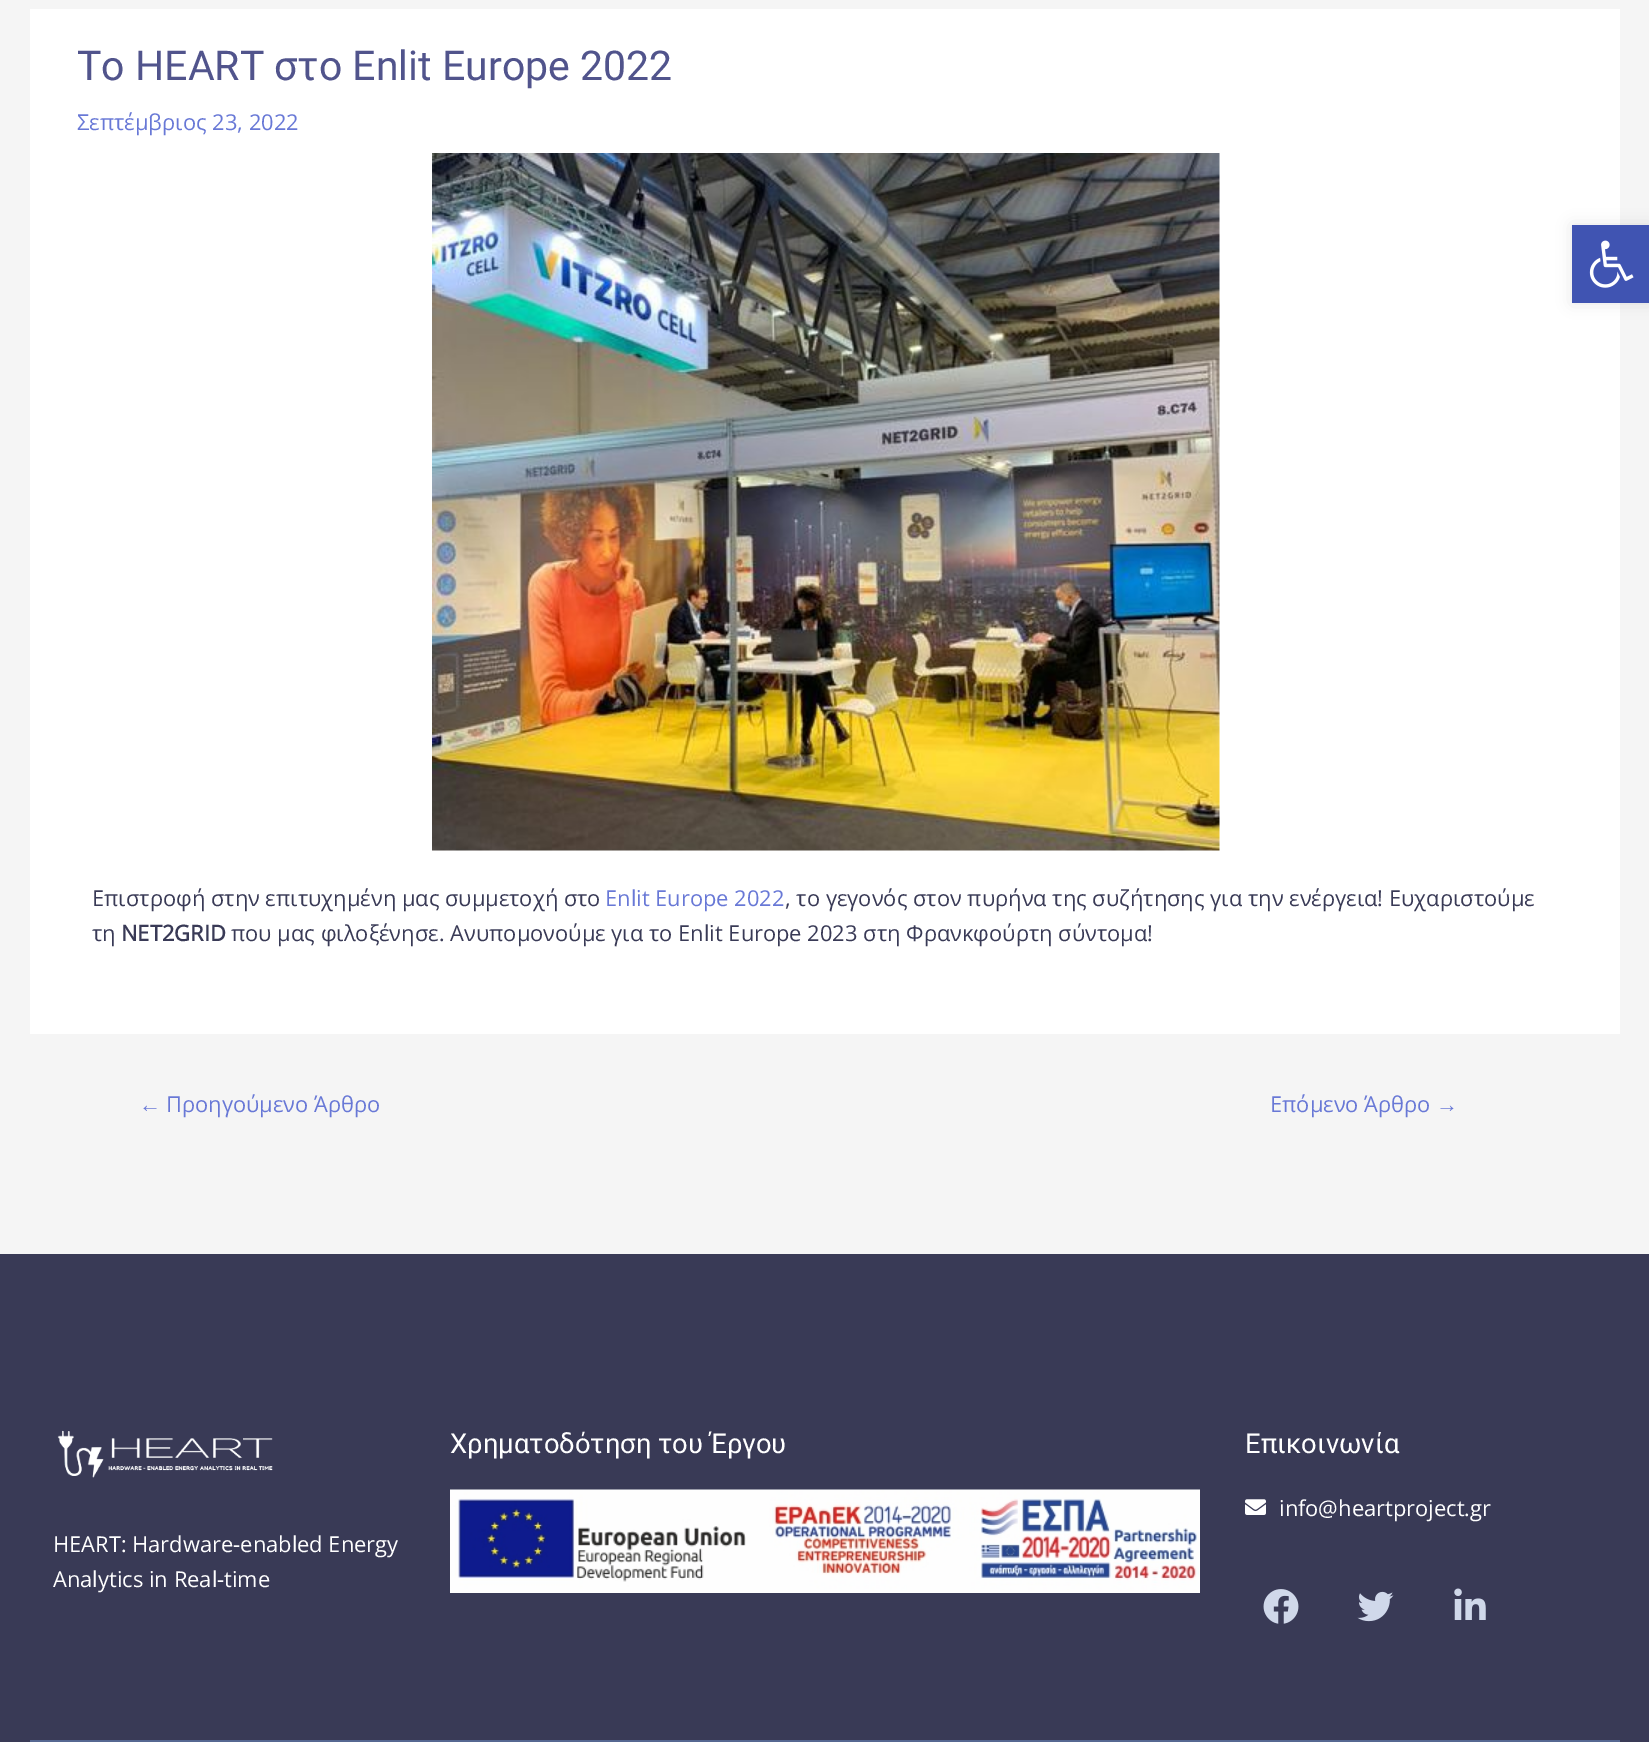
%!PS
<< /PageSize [1649 1742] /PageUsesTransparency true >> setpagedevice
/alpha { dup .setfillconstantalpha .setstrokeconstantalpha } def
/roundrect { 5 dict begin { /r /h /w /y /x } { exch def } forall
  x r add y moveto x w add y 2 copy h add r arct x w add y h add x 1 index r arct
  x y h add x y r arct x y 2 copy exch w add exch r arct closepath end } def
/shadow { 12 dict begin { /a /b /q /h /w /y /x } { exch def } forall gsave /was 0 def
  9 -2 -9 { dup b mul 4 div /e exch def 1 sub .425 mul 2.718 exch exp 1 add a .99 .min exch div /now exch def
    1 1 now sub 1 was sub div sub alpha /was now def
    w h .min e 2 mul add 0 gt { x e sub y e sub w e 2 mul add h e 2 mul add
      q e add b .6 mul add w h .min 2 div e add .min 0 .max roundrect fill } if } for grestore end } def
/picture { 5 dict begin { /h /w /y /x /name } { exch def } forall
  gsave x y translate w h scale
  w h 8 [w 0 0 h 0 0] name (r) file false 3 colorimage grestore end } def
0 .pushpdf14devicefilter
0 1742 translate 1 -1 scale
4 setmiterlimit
0.961 setgray
0 0 1649 1742 rectfill
1 setgray
30 9 1590 1025 rectfill
/Roboto-Regular [41 0 0 -41 0 0] selectfont
0.318 0.329 0.549 setrgbcolor
77 80 moveto (Το HEART στο Enlit Europe 2022) show
/OpenSans-Regular [21.9 0 0 -21.9 0 0] selectfont
0.408 0.471 0.839 setrgbcolor
77 130 moveto (Σεπτέμβριος 23, 2022) show
(img1.rgb) 432 153 788 698 picture
0.224 0.227 0.337 setrgbcolor
92 906 moveto (Επιστροφή στην επιτυχημένη μας συμμετοχή στο) show
0.408 0.471 0.839 setrgbcolor
605 906 moveto (Enlit Europe 2022) show
0.224 0.227 0.337 setrgbcolor
785 906 moveto (, το γεγονός στον πυρήνα της συζήτησης για την ενέργεια! Ευχαριστούμε) show
92 941 moveto (τη) show
/OpenSans-Bold [21.9 0 0 -21.9 0 0] selectfont
121 941 moveto (NET2GRID) show
/OpenSans-Regular [21.9 0 0 -21.9 0 0] selectfont
231 941 moveto (που μας φιλοξένησε. Ανυπομονούμε για το Enlit Europe 2023 στη Φρανκφούρτη σύντομα!) show
/LiberationSans-Regular [21.9 0 0 -21.9 0 0] selectfont
0.408 0.471 0.839 setrgbcolor
139 1112 moveto (←) show
/OpenSans-Regular [21.9 0 0 -21.9 0 0] selectfont
166 1112 moveto (Προηγούμενο Άρθρο) show
1270 1112 moveto (Επόμενο Άρθρο) show
/LiberationSans-Regular [21.9 0 0 -21.9 0 0] selectfont
1436 1112 moveto (→) show
0.224 0.227 0.337 setrgbcolor
0 1254 1649 488 rectfill
/Roboto-Regular [27.4 0 0 -27.4 0 0] selectfont
1 setgray
450 1453 moveto (Χρηματοδότηση του Έργου) show
(img2.rgb) 450 1489 750 104 picture
1245 1453 moveto (Επικοινωνία) show
(img3.rgb) 1245 1499 21 16 picture
/OpenSans-Regular [21.9 0 0 -21.9 0 0] selectfont
1279 1516 moveto (info@heartproject.gr) show
(img4.rgb) 1263 1589 36 35 picture
(img5.rgb) 1357 1591 37 31 picture
(img6.rgb) 1454 1588 32 32 picture
(img7.rgb) 57 1430 216 48 picture
53 1552 moveto (HEART: Hardware-enabled Energy) show
53 1587 moveto (Analytics in Real-time) show
0.337 0.408 0.573 setrgbcolor
30 1740 1590 2 rectfill
0 setgray
1572 225 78 78 0 7.5 0.1 shadow
0.251 0.329 0.698 setrgbcolor
1572 225 77 78 rectfill
(img8.rgb) 1589 240 45 48 picture
.poppdf14devicefilter showpage
